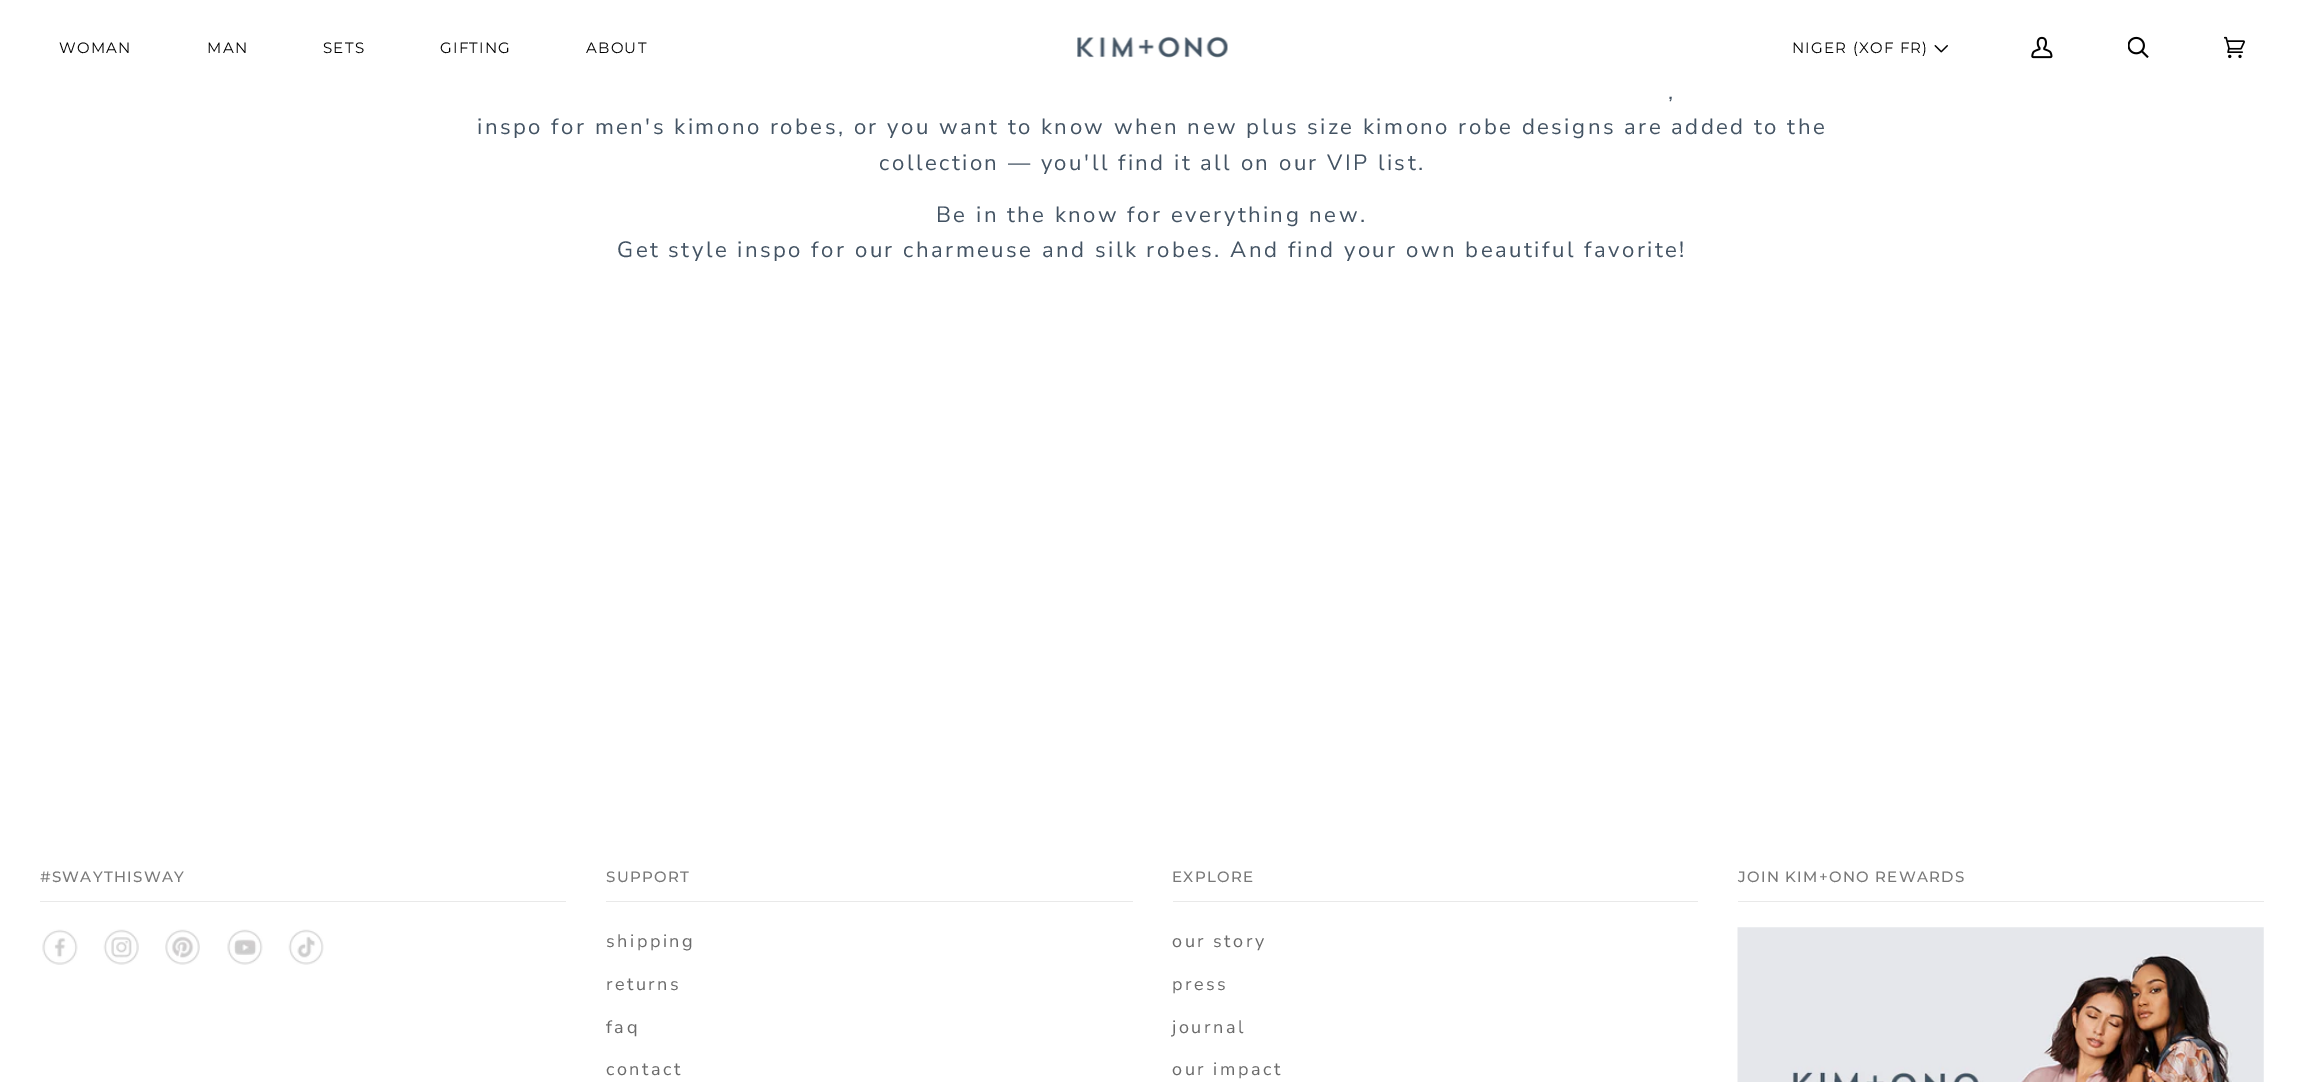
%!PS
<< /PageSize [2303 1082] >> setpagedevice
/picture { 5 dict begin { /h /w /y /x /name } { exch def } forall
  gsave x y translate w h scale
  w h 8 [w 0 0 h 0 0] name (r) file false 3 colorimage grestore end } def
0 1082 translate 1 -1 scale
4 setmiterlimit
1 setgray
0 0 2303 1082 rectfill
/Montserrat-Regular [15 0 0 -15 0 0] selectfont
0 setgray
59 53 moveto 1.25 0 (WOMAN) ashow
207 53 moveto 1.25 0 (MAN) ashow
323 53 moveto 1.25 0 (SETS) ashow
440 53 moveto 1.25 0 (GIFTING) ashow
586 53 moveto 1.25 0 (ABOUT) ashow
(img1.rgb) 1077 36 151 22 picture
1792 53 moveto 1.25 0 (NIGER \(XOF FR\)) ashow
(img2.rgb) 1934 45 14 8 picture
(img3.rgb) 2031 36 22 23 picture
(img4.rgb) 2128 36 21 22 picture
(img5.rgb) 2224 36 21 23 picture
/NunitoSans-Regular [22.15 0 0 -22.15 0 0] selectfont
0.263 0.325 0.388 setrgbcolor
1668 99 moveto 2.5 0 (,) ashow
477 134 moveto 2.5 0 (inspo for men's kimono robes, or you want to know when new plus size kimono robe designs are added to the) ashow
879 170 moveto 2.5 0 (collection — you'll find it all on our VIP list.) ashow
936 222 moveto 2.5 0 (Be in the know for everything new.) ashow
617 257 moveto 2.5 0 (Get style inspo for our charmeuse and silk robes. And find your own beautiful favorite!) ashow
0.914 setgray
40 901 526 1 rectfill
/Montserrat-Medium [15 0 0 -15 0 0] selectfont
0.475 setgray
40 882 moveto 1.25 0 (#SWAYTHISWAY) ashow
(img6.rgb) 42 929 36 36 picture
(img7.rgb) 103 929 36 36 picture
(img8.rgb) 165 929 35 36 picture
(img9.rgb) 227 929 36 36 picture
(img10.rgb) 288 929 36 36 picture
0.914 setgray
606 901 527 1 rectfill
0.475 setgray
606 882 moveto 1.25 0 (SUPPORT) ashow
/NunitoSans-Regular [18 0 0 -18 0 0] selectfont
0.416 setgray
606 947 moveto 2.5 0 (shipping) ashow
606 990 moveto 2.5 0 (returns) ashow
606 1033 moveto 2.5 0 (faq) ashow
606 1075 moveto 2.5 0 (contact) ashow
0.914 setgray
1173 901 525 1 rectfill
/Montserrat-Medium [15 0 0 -15 0 0] selectfont
0.475 setgray
1172 882 moveto 1.25 0 (EXPLORE) ashow
/NunitoSans-Regular [18 0 0 -18 0 0] selectfont
0.416 setgray
1172 947 moveto 2.5 0 (our story) ashow
1172 990 moveto 2.5 0 (press) ashow
1172 1033 moveto 2.5 0 (journal) ashow
1172 1075 moveto 2.5 0 (our impact) ashow
0.914 setgray
1738 901 526 1 rectfill
/Montserrat-Medium [15 0 0 -15 0 0] selectfont
0.475 setgray
1738 882 moveto 1.25 0 (JOIN KIM+ONO REWARDS) ashow
(img11.rgb) 1737 927 527 155 picture
showpage
